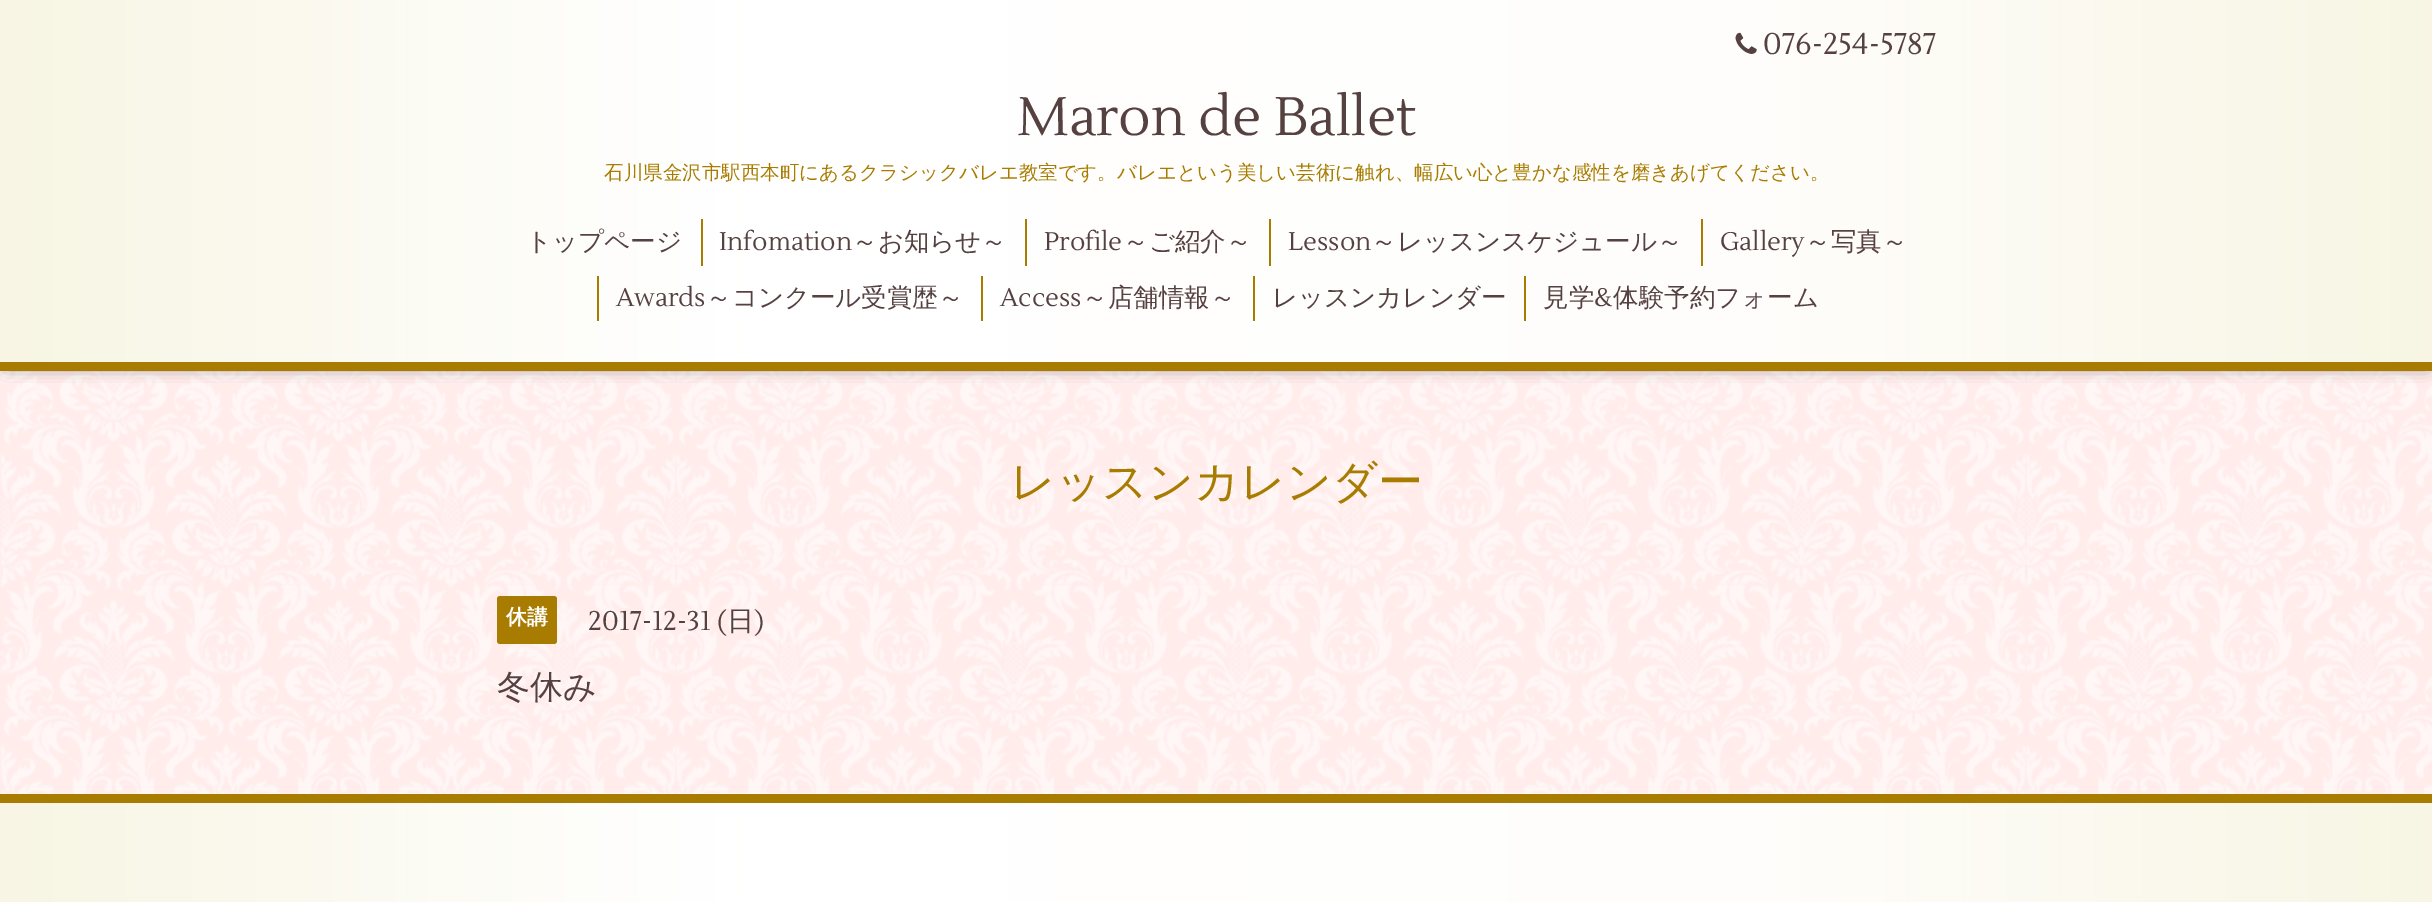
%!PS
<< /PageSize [2432 902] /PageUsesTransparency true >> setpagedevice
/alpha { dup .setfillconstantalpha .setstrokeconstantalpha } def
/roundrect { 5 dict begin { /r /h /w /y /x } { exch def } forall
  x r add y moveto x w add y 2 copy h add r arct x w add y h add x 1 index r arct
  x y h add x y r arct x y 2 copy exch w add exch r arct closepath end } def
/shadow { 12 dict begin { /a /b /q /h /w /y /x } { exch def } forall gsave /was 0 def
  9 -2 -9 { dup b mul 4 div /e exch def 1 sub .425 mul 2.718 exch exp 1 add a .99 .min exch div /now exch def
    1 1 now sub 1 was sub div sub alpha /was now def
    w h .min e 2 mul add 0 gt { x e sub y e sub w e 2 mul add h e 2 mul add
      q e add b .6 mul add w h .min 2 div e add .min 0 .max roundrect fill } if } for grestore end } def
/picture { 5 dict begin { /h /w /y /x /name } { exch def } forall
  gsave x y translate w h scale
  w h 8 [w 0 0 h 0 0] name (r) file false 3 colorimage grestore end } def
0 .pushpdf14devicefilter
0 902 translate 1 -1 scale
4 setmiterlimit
1 0.925 0.922 setrgbcolor
0 0 2432 902 rectfill
(img1.rgb) 0 371 2432 423 picture
0 setgray
6 8 2421 358 0 7.5 0.6 shadow
(img2.rgb) 0 0 2432 362 picture
0.659 0.486 0 setrgbcolor
0 362 2432 9 rectfill
(img3.rgb) 1735 32 22 22 picture
/Lustria-Regular [30 0 0 -30 0 0] selectfont
0.337 0.255 0.255 setrgbcolor
1763 54 moveto (076-254-5787) show
/Lustria-Regular [54 0 0 -54 0 0] selectfont
1017 135 moveto (Maron de Ballet) show
/WenQuanYiZenHei-Medium [19.5 0 0 -19.5 0 0] selectfont
0.659 0.486 0 setrgbcolor
604 179 moveto (石川県金沢市駅西本町にあるクラシックバレエ教室です。バレエという美しい芸術に触れ、幅広い心と豊かな感性を磨きあげてください。) show
/WenQuanYiZenHei-Medium [25.5 0 0 -25.5 0 0] selectfont
0.337 0.255 0.255 setrgbcolor
526 250 moveto (トップページ) show
0.659 0.486 0 setrgbcolor
701 219 2 47 rectfill
/Lustria-Regular [25.5 0 0 -25.5 0 0] selectfont
0.337 0.255 0.255 setrgbcolor
719 250 moveto (Infomation) show
/WenQuanYiZenHei-Medium [25.5 0 0 -25.5 0 0] selectfont
852 250 moveto (～お知らせ～) show
0.659 0.486 0 setrgbcolor
1025 219 2 47 rectfill
/Lustria-Regular [25.5 0 0 -25.5 0 0] selectfont
0.337 0.255 0.255 setrgbcolor
1044 250 moveto (Profile) show
/WenQuanYiZenHei-Medium [25.5 0 0 -25.5 0 0] selectfont
1123 250 moveto (～ご紹介～) show
0.659 0.486 0 setrgbcolor
1269 219 2 47 rectfill
/Lustria-Regular [25.5 0 0 -25.5 0 0] selectfont
0.337 0.255 0.255 setrgbcolor
1288 250 moveto (Lesson) show
/WenQuanYiZenHei-Medium [25.5 0 0 -25.5 0 0] selectfont
1371 250 moveto (～レッスンスケジュール～) show
0.659 0.486 0 setrgbcolor
1701 219 2 47 rectfill
/Lustria-Regular [25.5 0 0 -25.5 0 0] selectfont
0.337 0.255 0.255 setrgbcolor
1720 250 moveto (Gallery) show
/WenQuanYiZenHei-Medium [25.5 0 0 -25.5 0 0] selectfont
1805 250 moveto (～写真～) show
0.659 0.486 0 setrgbcolor
597 276 2 45 rectfill
/Lustria-Regular [25.5 0 0 -25.5 0 0] selectfont
0.337 0.255 0.255 setrgbcolor
616 306 moveto (Awards) show
/WenQuanYiZenHei-Medium [25.5 0 0 -25.5 0 0] selectfont
706 306 moveto (～コンクール受賞歴～) show
0.659 0.486 0 setrgbcolor
981 276 2 45 rectfill
/Lustria-Regular [25.5 0 0 -25.5 0 0] selectfont
0.337 0.255 0.255 setrgbcolor
1000 306 moveto (Access) show
/WenQuanYiZenHei-Medium [25.5 0 0 -25.5 0 0] selectfont
1082 306 moveto (～店舗情報～) show
0.659 0.486 0 setrgbcolor
1253 276 2 45 rectfill
0.337 0.255 0.255 setrgbcolor
1272 306 moveto (レッスンカレンダー) show
0.659 0.486 0 setrgbcolor
1524 276 2 45 rectfill
0.337 0.255 0.255 setrgbcolor
1543 306 moveto (見学) show
/Lustria-Regular [25.5 0 0 -25.5 0 0] selectfont
1594 306 moveto (&) show
/WenQuanYiZenHei-Medium [25.5 0 0 -25.5 0 0] selectfont
1613 306 moveto (体験予約フォーム) show
/WenQuanYiZenHei-Medium [45 0 0 -45 0 0] selectfont
0.659 0.486 0 setrgbcolor
1010 497 moveto (レッスンカレンダー) show
497 596 60 48 3 roundrect fill
/WenQuanYiZenHei-Bold [21 0 0 -21 0 0] selectfont
1 setgray
506 624 moveto (休講) show
/Lustria-Regular [27 0 0 -27 0 0] selectfont
0.337 0.255 0.255 setrgbcolor
588 630 moveto (2017-12-31 \() show
/WenQuanYiZenHei-Medium [27 0 0 -27 0 0] selectfont
727 630 moveto (日) show
/Lustria-Regular [27 0 0 -27 0 0] selectfont
754 630 moveto (\)) show
/WenQuanYiZenHei-Medium [33 0 0 -33 0 0] selectfont
497 698 moveto (冬休み) show
(img4.rgb) 0 793 2432 109 picture
0.659 0.486 0 setrgbcolor
0 794 2432 9 rectfill
.poppdf14devicefilter showpage
